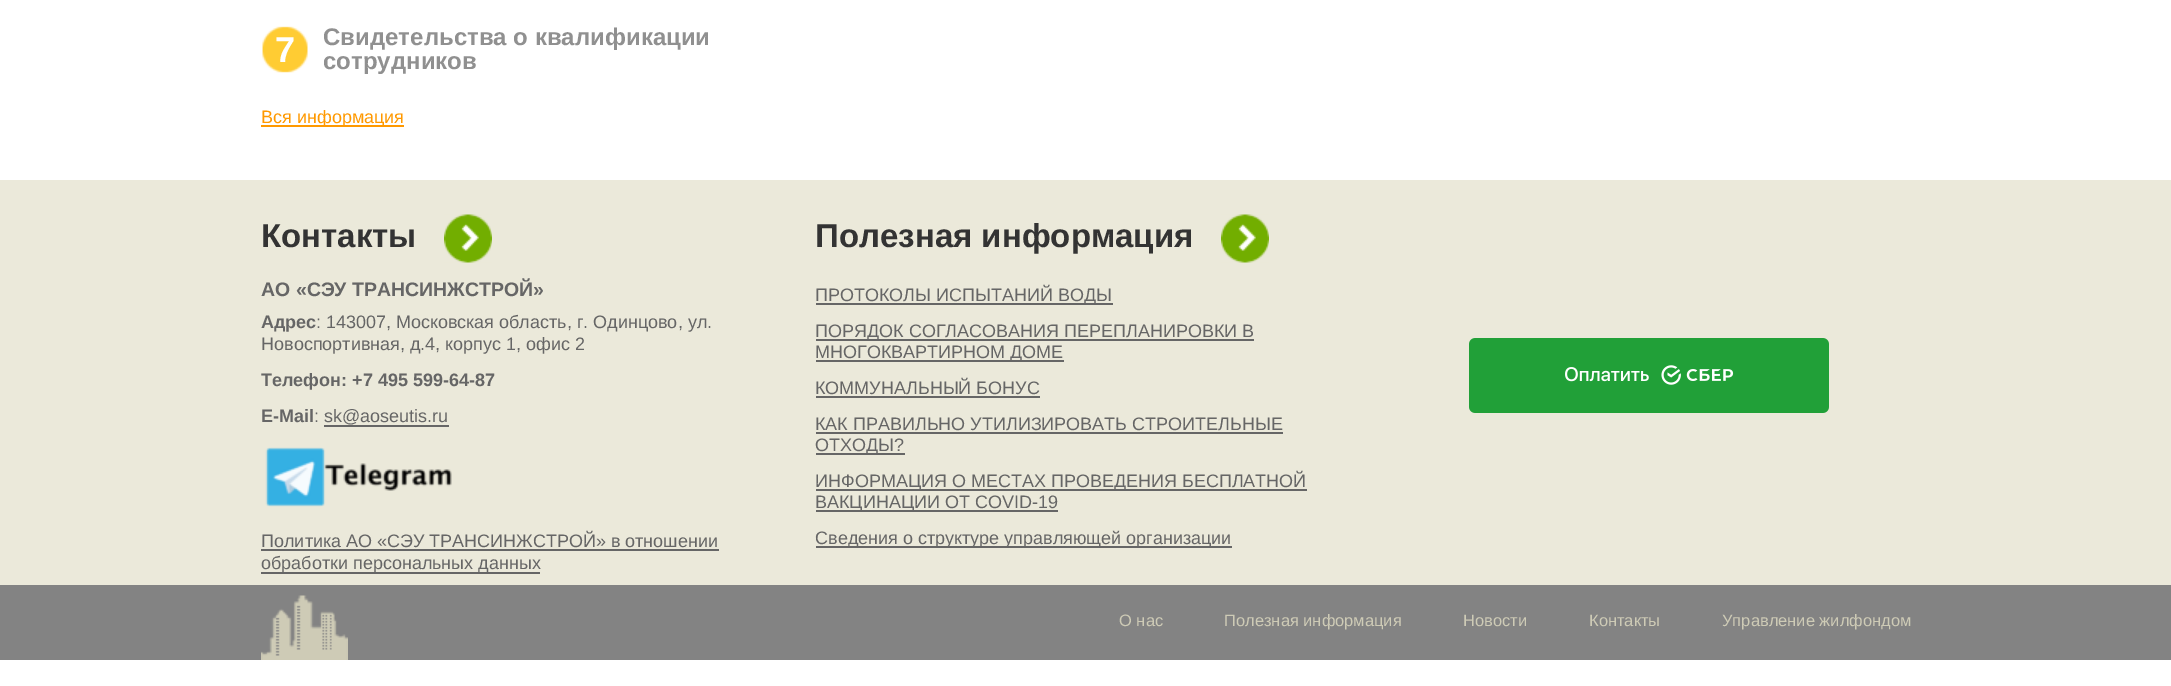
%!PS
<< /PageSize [2171 686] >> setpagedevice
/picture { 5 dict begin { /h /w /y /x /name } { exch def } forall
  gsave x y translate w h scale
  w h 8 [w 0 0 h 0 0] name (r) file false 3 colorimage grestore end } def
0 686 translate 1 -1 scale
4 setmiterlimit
1 setgray
0 0 2171 686 rectfill
(img1.rgb) 262 26 46 47 picture
/LiberationSans-Bold [36 0 0 -36 0 0] selectfont
275 62 moveto (7) show
/LiberationSans-Bold [24 0 0 -24 0 0] selectfont
0.565 setgray
323 45 moveto (Свидетельства о квалификации) show
323 69 moveto (сотрудников) show
1 0.6 0 setrgbcolor
261 125 143 2 rectfill
/LiberationSans-Regular [18 0 0 -18 0 0] selectfont
261 123 moveto (Вся информация) show
0.922 0.914 0.855 setrgbcolor
0 180 2171 405 rectfill
(img2.rgb) 444 214 48 49 picture
/LiberationSans-Bold [33 0 0 -33 0 0] selectfont
0.2 setgray
261 247 moveto (Контакты) show
/LiberationSans-Bold [19.5 0 0 -19.5 0 0] selectfont
0.4 setgray
261 296 moveto (АО «СЭУ ТРАНСИНЖСТРОЙ») show
/LiberationSans-Bold [18 0 0 -18 0 0] selectfont
261 328 moveto (Адрес) show
/LiberationSans-Regular [18 0 0 -18 0 0] selectfont
316 328 moveto (: 143007, Московская область, г. Одинцово, ул.) show
261 350 moveto (Новоспортивная, д.4, корпус 1, офис 2) show
/LiberationSans-Bold [18 0 0 -18 0 0] selectfont
261 386 moveto (Телефон: +7 495 599-64-87) show
261 422 moveto (E-Mail) show
/LiberationSans-Regular [18 0 0 -18 0 0] selectfont
314 422 moveto (: sk@aoseutis.ru) show
324 425 125 2 rectfill
(img3.rgb) 265 447 187 60 picture
261 547 moveto (Политика АО «СЭУ ТРАНСИНЖСТРОЙ» в отношении) show
261 549 458 2 rectfill
261 572 279 2 rectfill
261 569 moveto (обработки персональных данных) show
(img2.rgb) 1221 214 48 49 picture
/LiberationSans-Bold [33 0 0 -33 0 0] selectfont
0.2 setgray
815 247 moveto (Полезная информация) show
0.4 setgray
816 303 297 2 rectfill
/LiberationSans-Regular [18 0 0 -18 0 0] selectfont
815 301 moveto (ПРОТОКОЛЫ ИСПЫТАНИЙ ВОДЫ) show
816 339 438 2 rectfill
815 337 moveto (ПОРЯДОК СОГЛАСОВАНИЯ ПЕРЕПЛАНИРОВКИ В) show
816 360 248 2 rectfill
815 358 moveto (МНОГОКВАРТИРНОМ ДОМЕ) show
815 394 moveto (КОММУНАЛЬНЫЙ БОНУС) show
816 396 224 2 rectfill
815 430 moveto (КАК ПРАВИЛЬНО УТИЛИЗИРОВАТЬ СТРОИТЕЛЬНЫЕ) show
816 432 467 2 rectfill
816 453 89 2 rectfill
815 451 moveto (ОТХОДЫ?) show
816 489 491 2 rectfill
815 487 moveto (ИНФОРМАЦИЯ О МЕСТАХ ПРОВЕДЕНИЯ БЕСПЛАТНОЙ) show
816 510 242 2 rectfill
815 508 moveto (ВАКЦИНАЦИИ ОТ COVID-19) show
816 546 416 2 rectfill
815 544 moveto (Сведения о структуре управляющей организации) show
(img4.rgb) 1469 338 360 75 picture
0.514 setgray
0 585 2171 75 rectfill
(img5.rgb) 261 595 87 65 picture
/LiberationSans-Regular [16.5 0 0 -16.5 0 0] selectfont
0.808 0.796 0.714 setrgbcolor
1119 626 moveto (О нас) show
1224 626 moveto (Полезная информация) show
1463 626 moveto (Новости) show
1589 626 moveto (Контакты) show
1722 626 moveto (Управление жилфондом) show
showpage
